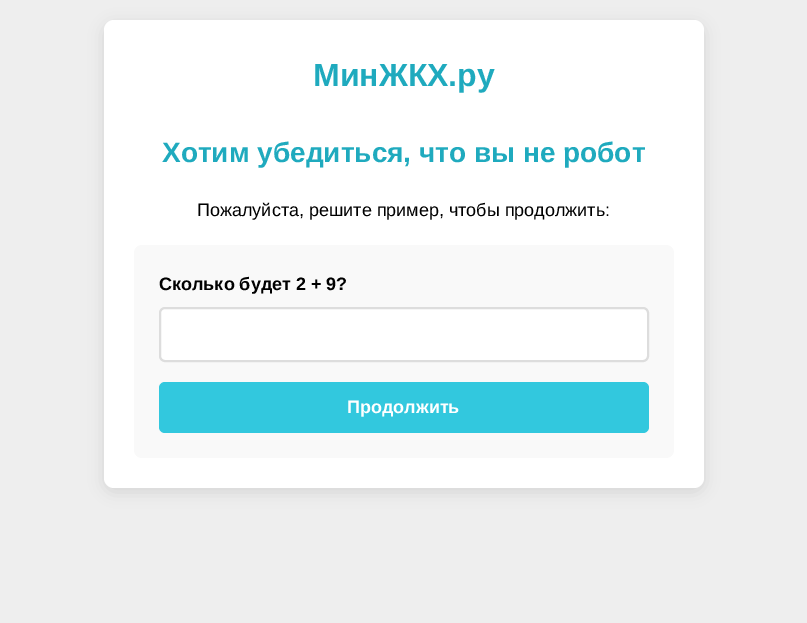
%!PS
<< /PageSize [807 623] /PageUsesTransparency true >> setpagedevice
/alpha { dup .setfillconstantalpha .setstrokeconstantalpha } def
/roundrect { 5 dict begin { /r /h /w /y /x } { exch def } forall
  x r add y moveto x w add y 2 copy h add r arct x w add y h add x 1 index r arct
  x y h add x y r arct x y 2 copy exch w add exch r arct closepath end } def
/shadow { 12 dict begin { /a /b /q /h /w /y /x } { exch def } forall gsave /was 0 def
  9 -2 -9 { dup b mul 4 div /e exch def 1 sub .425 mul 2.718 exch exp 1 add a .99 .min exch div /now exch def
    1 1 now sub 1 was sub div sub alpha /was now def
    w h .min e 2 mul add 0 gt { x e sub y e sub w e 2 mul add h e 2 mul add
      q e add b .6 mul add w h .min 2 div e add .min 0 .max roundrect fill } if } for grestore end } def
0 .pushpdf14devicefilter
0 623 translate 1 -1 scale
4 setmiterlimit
0.933 setgray
0 0 807 623 rectfill
0 setgray
104 24 600 468 10 7.5 0.1 shadow
1 setgray
104 20 600 468 10 roundrect fill
/LiberationSans-Bold [32 0 0 -32 0 0] selectfont
0.122 0.667 0.745 setrgbcolor
313 86 moveto (МинЖКХ.ру) show
/LiberationSans-Bold [28 0 0 -28 0 0] selectfont
162 162 moveto (Хотим убедиться, что вы не робот) show
/LiberationSans-Regular [18 0 0 -18 0 0] selectfont
0 setgray
197 216 moveto (Пожалуйста, решите пример, чтобы продолжить:) show
0.976 setgray
134 245 540 213 8 roundrect fill
/LiberationSans-Bold [18 0 0 -18 0 0] selectfont
0 setgray
159 290 moveto (Сколько будет 2 + 9?) show
1 setgray
160 308 488 53 5 roundrect gsave fill grestore
0.867 setgray
2 setlinewidth
stroke
0.196 0.784 0.871 setrgbcolor
159 382 490 51 6 roundrect fill
1 setgray
347 413 moveto (Продолжить) show
.poppdf14devicefilter showpage
